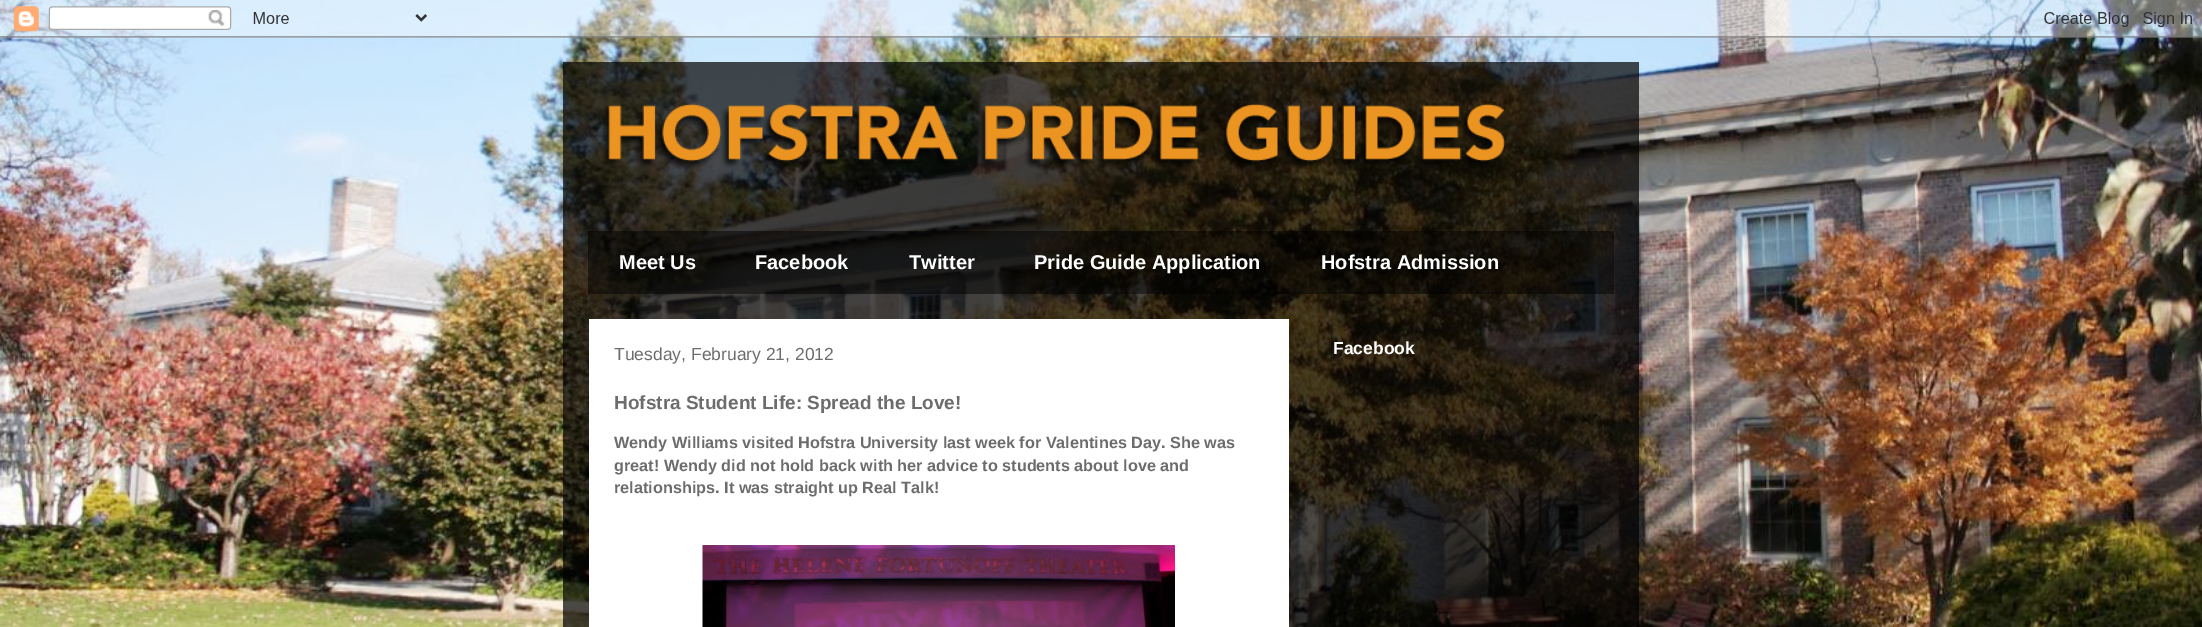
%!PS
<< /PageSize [2202 627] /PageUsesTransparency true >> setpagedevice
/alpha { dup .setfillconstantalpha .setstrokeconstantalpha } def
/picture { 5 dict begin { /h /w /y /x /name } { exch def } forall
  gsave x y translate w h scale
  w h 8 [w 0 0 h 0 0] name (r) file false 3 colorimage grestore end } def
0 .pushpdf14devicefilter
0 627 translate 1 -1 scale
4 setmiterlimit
1 setgray
0 0 2202 627 rectfill
(img1.rgb) 0 0 2202 627 picture
(img2.rgb) 0 0 2202 38 picture
0.7 alpha
0 setgray
563 62 1076 565 rectfill
1 alpha
(img3.rgb) 602 103 904 66 picture
0.5 alpha
588 231 1026 63 rectfill
/LiberationSans-Bold [20 0 0 -20 0 0] selectfont
1 alpha
1 setgray
619 269 moveto (Meet Us) show
755 269 moveto (Facebook) show
909 269 moveto (Twitter) show
1034 269 moveto (Pride Guide Application) show
1321 269 moveto (Hofstra Admission) show
589 319 700 308 rectfill
/LiberationSans-Regular [17.5 0 0 -17.5 0 0] selectfont
0.424 setgray
614 360 moveto (Tuesday, February 21, 2012) show
/LiberationSans-Bold [19 0 0 -19 0 0] selectfont
614 409 moveto (Hofstra Student Life: Spread the Love!) show
/LiberationSans-Bold [16.25 0 0 -16.25 0 0] selectfont
614 448 moveto (Wendy Williams visited Hofstra University last week for Valentines Day. She was) show
614 471 moveto (great! Wendy did not hold back with her advice to students about love and) show
614 493 moveto (relationships. It was straight up Real Talk!) show
(img4.rgb) 702 545 473 82 picture
/LiberationSans-Bold [17.5 0 0 -17.5 0 0] selectfont
1 setgray
1333 354 moveto (Facebook) show
.poppdf14devicefilter showpage
